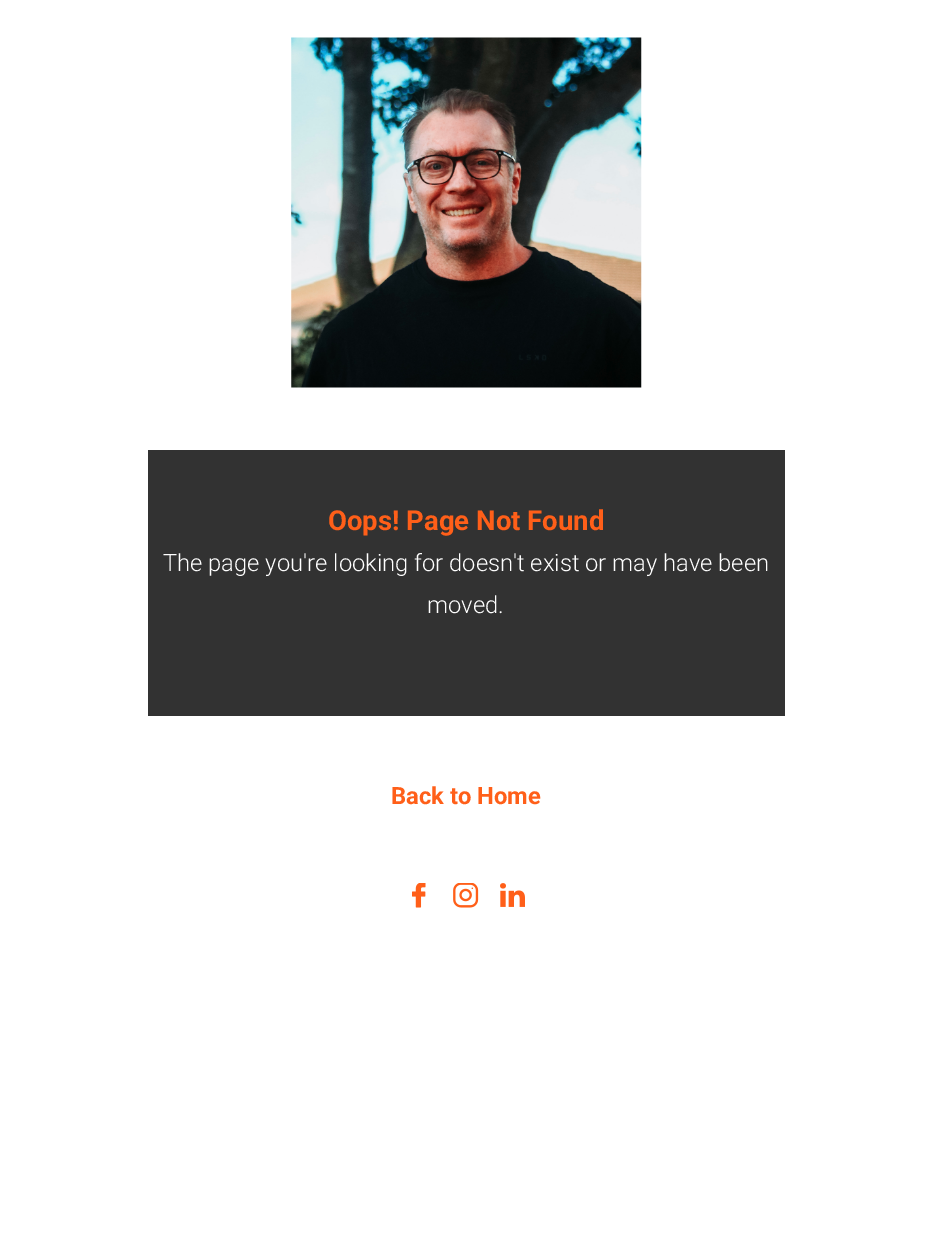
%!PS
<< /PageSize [931 1234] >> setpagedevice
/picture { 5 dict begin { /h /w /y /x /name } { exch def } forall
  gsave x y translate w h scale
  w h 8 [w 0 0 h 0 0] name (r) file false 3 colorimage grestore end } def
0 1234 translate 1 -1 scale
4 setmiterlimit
1 setgray
0 0 931 1234 rectfill
(img1.rgb) 291 37 351 351 picture
0.196 setgray
148 450 637 266 rectfill
/Roboto-Bold [27.5 0 0 -27.5 0 0] selectfont
1 0.373 0.098 setrgbcolor
328 530 moveto (Oops! Page Not Found) show
/Roboto-Light [23.75 0 0 -23.75 0 0] selectfont
1 setgray
163 571 moveto (The page you're looking for doesn't exist or may have been) show
427 613 moveto (moved.) show
/Roboto-Bold [23.75 0 0 -23.75 0 0] selectfont
1 0.373 0.098 setrgbcolor
391 804 moveto (Back to Home) show
(img2.rgb) 412 883 14 25 picture
(img3.rgb) 453 883 26 25 picture
(img4.rgb) 500 883 25 24 picture
showpage
